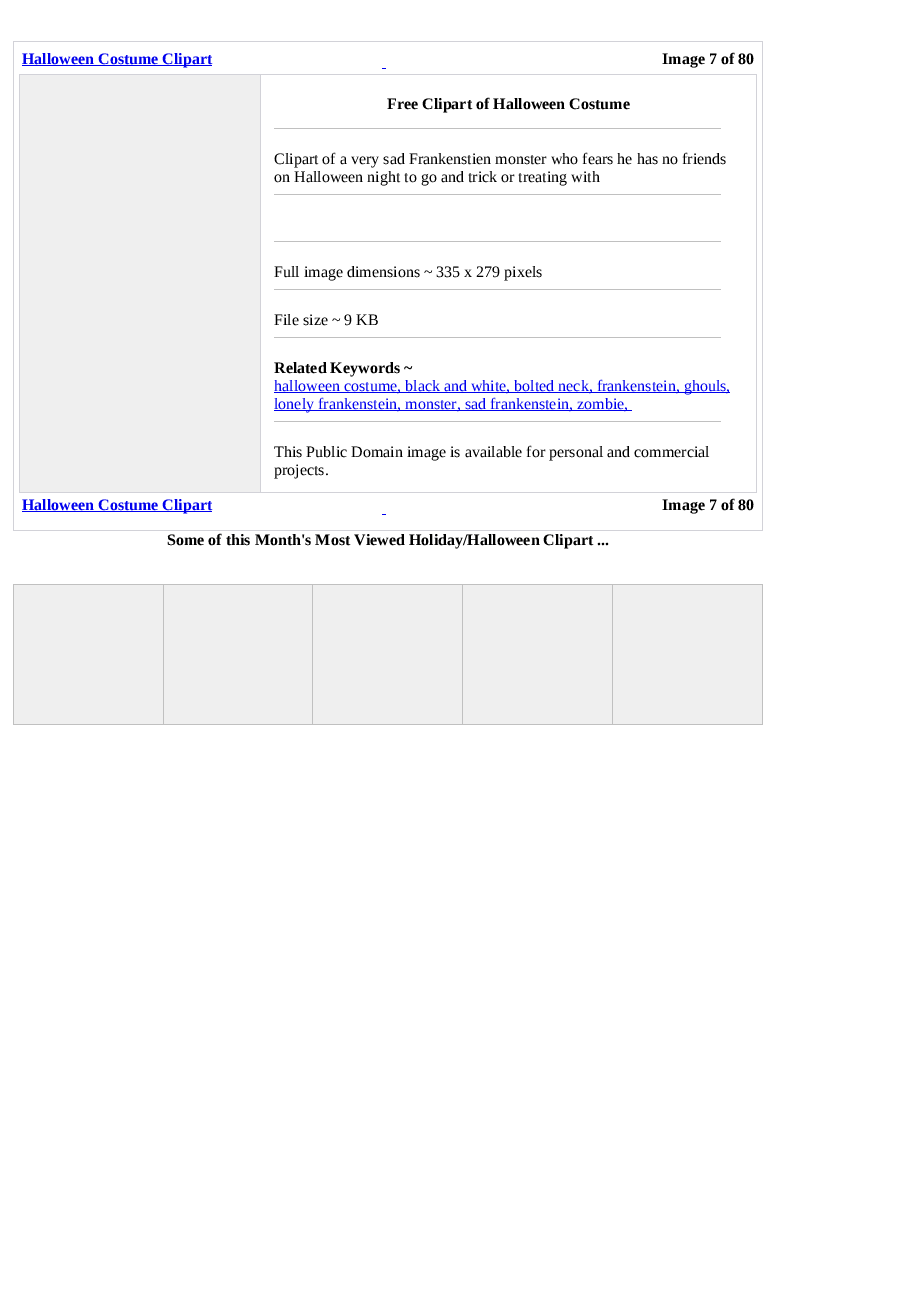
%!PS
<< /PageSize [906 1289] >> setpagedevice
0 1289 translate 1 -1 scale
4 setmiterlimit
1 setgray
0 0 906 1289 rectfill
0.824 0.824 0.847 setrgbcolor
13 41 750 1 rectfill
762 41 1 490 rectfill
13 530 750 1 rectfill
13 41 1 490 rectfill
0 0 0.933 setrgbcolor
22 65 190 1 rectfill
/LiberationSerif-Bold [16 0 0 -16 0 0] selectfont
22 64 moveto (Halloween Costume Clipart) show
0 setgray
662 64 moveto (Image 7 of 80) show
0 0 0.933 setrgbcolor
382 68 4 1 rectfill
0.824 0.824 0.847 setrgbcolor
19 74 738 1 rectfill
756 74 1 419 rectfill
19 492 738 1 rectfill
19 74 1 419 rectfill
0.937 setgray
20 75 240 417 rectfill
0.824 0.824 0.847 setrgbcolor
260 74 1 419 rectfill
0 setgray
387 109 moveto (Free Clipart of Halloween Costume) show
0.753 setgray
274 128 447 1 rectfill
/LiberationSerif-Regular [16 0 0 -16 0 0] selectfont
0 setgray
274 164 moveto (Clipart of a very sad Frankenstien monster who fears he has no friends) show
274 182 moveto (on Halloween night to go and trick or treating with) show
0.753 setgray
274 194 447 1 rectfill
274 241 447 1 rectfill
0 setgray
274 277 moveto (Full image dimensions ~ 335 x 279 pixels) show
0.753 setgray
274 289 447 1 rectfill
0 setgray
274 325 moveto (File size ~ 9 KB) show
0.753 setgray
274 337 447 1 rectfill
/LiberationSerif-Bold [16 0 0 -16 0 0] selectfont
0 setgray
274 373 moveto (Related Keywords ~) show
0 0 0.933 setrgbcolor
274 392 456 1 rectfill
/LiberationSerif-Regular [16 0 0 -16 0 0] selectfont
274 391 moveto (halloween costume, black and white, bolted neck, frankenstein, ghouls,) show
274 410 358 1 rectfill
274 409 moveto (lonely frankenstein, monster, sad frankenstein, zombie,) show
0.753 setgray
274 421 447 1 rectfill
0 setgray
274 457 moveto (This Public Domain image is available for personal and commercial) show
274 475 moveto (projects.) show
0 0 0.933 setrgbcolor
22 511 190 1 rectfill
/LiberationSerif-Bold [16 0 0 -16 0 0] selectfont
22 510 moveto (Halloween Costume Clipart) show
0 setgray
662 510 moveto (Image 7 of 80) show
0 0 0.933 setrgbcolor
382 514 4 1 rectfill
0 setgray
167 545 moveto (Some of this Month's Most Viewed Holiday/Halloween Clipart ...) show
0.753 setgray
13 584 750 1 rectfill
762 584 1 141 rectfill
13 724 750 1 rectfill
13 584 1 141 rectfill
0.937 setgray
14 585 149 139 rectfill
164 585 148 139 rectfill
0.753 setgray
163 584 1 141 rectfill
0.937 setgray
313 585 149 139 rectfill
0.753 setgray
312 584 1 141 rectfill
0.937 setgray
463 585 149 139 rectfill
0.753 setgray
462 584 1 141 rectfill
0.937 setgray
613 585 149 139 rectfill
0.753 setgray
612 584 1 141 rectfill
showpage
